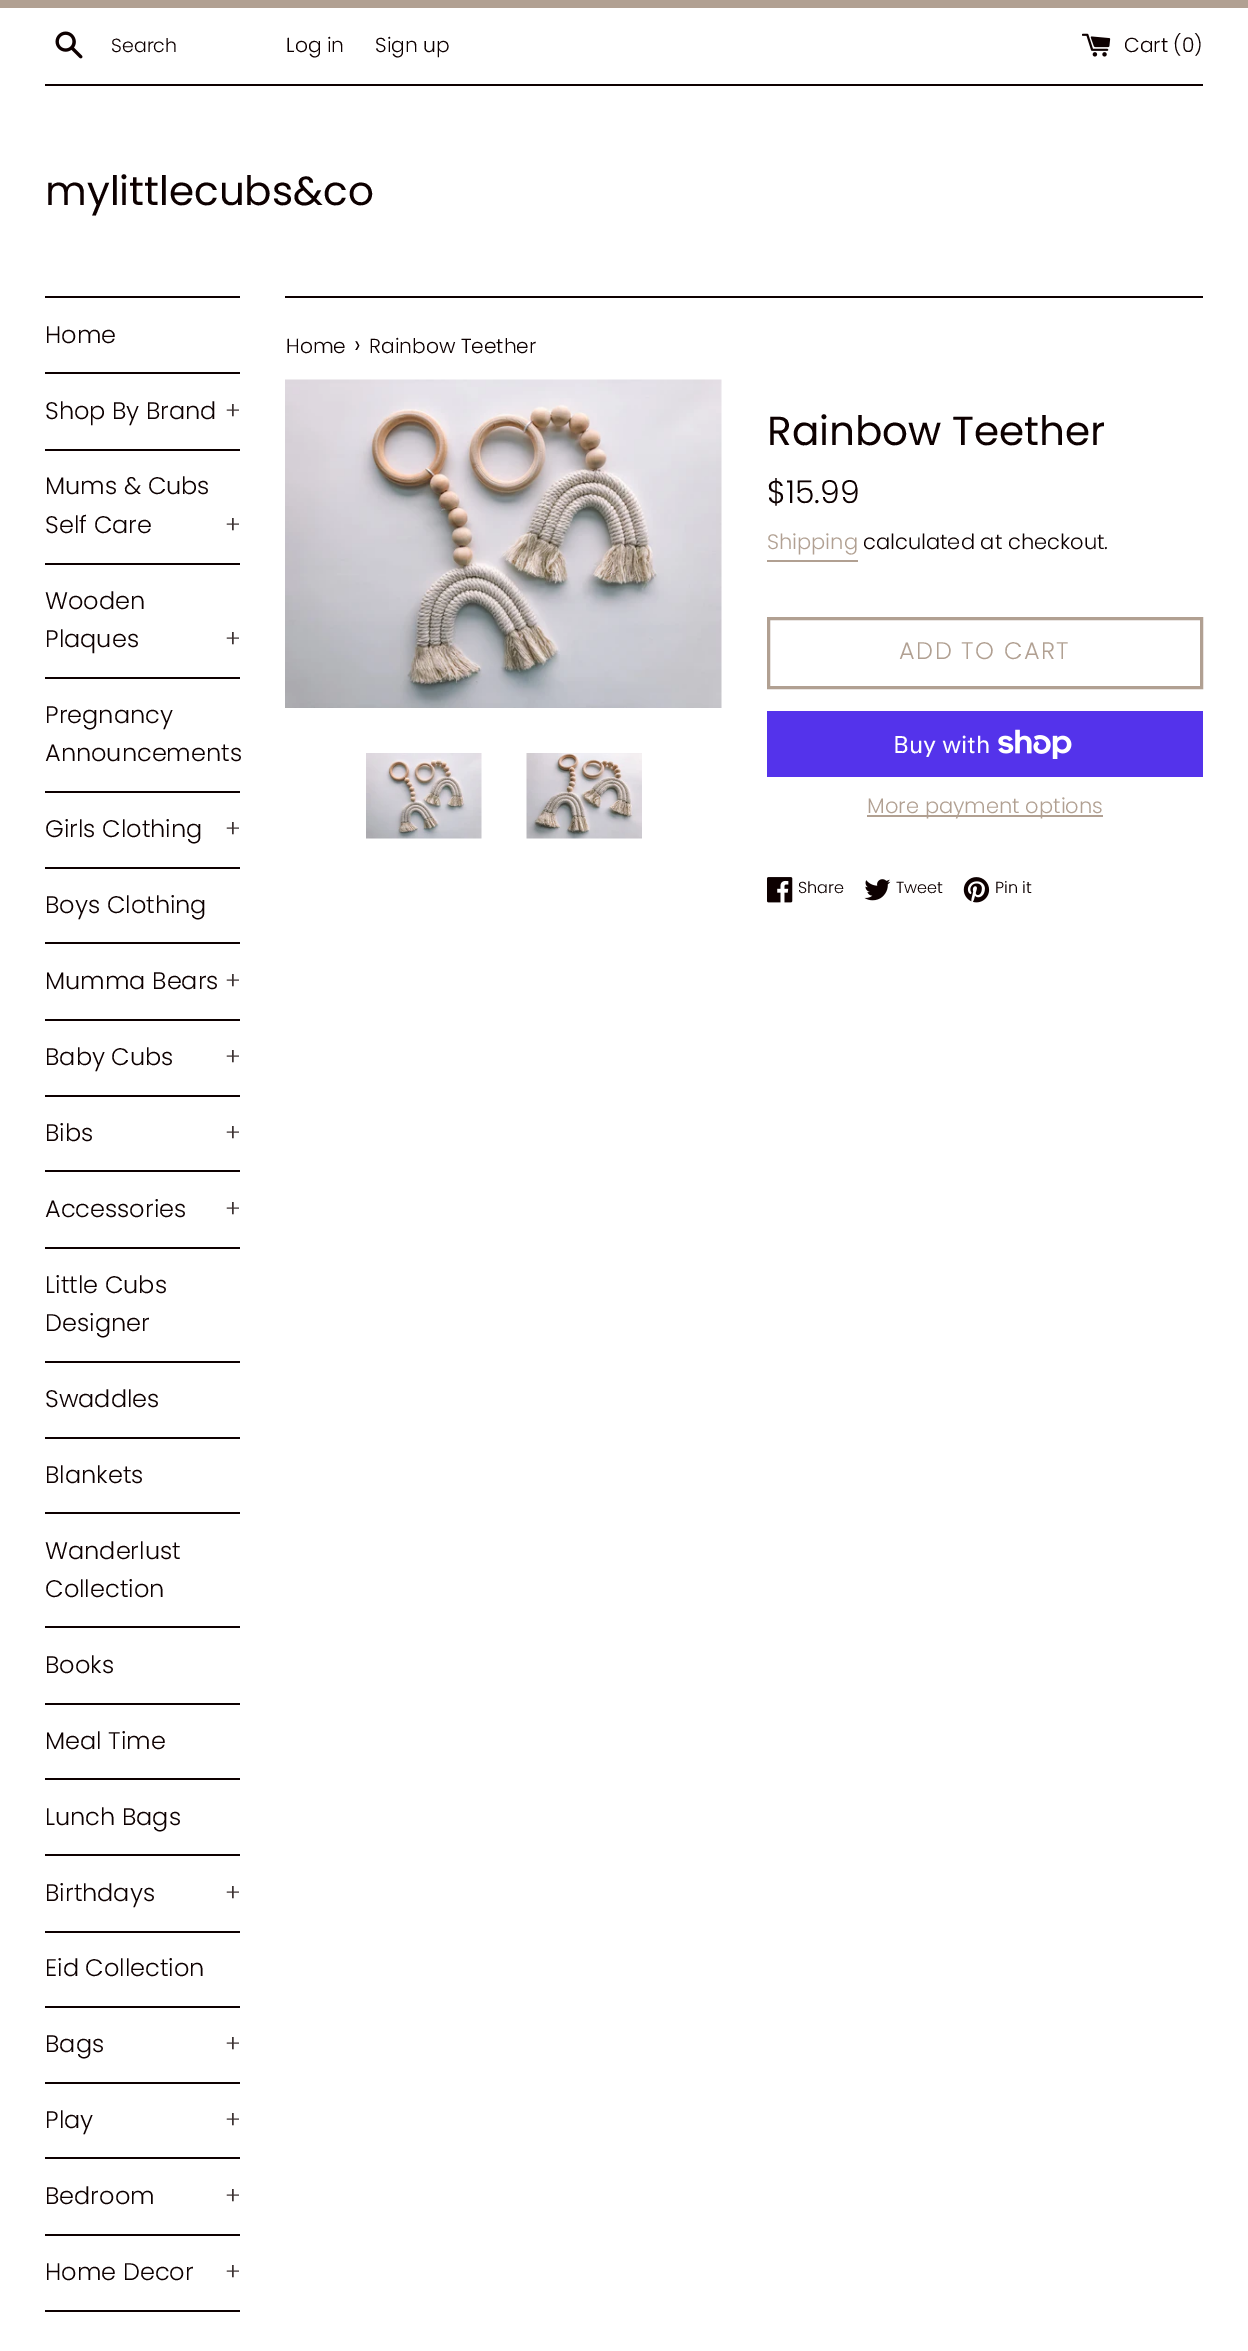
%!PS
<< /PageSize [1248 2351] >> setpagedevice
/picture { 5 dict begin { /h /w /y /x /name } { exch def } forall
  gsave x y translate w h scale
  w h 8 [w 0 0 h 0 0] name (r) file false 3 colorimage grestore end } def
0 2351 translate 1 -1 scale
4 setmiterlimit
1 setgray
0 0 1248 2351 rectfill
0.694 0.627 0.573 setrgbcolor
0 0 1248 8 rectfill
(img1.rgb) 55 31 28 28 picture
/Poppins-Light [19 0 0 -19 0 0] selectfont
0.051 0 0 setrgbcolor
111 52 moveto (Search) show
/Poppins-Light [20.25 0 0 -20.25 0 0] selectfont
286 52 moveto (Log in) show
375 52 moveto (Sign up) show
(img2.rgb) 1082 33 29 24 picture
1124 52 moveto (Cart \(0\)) show
45 84 1158 2 rectfill
/Poppins-Regular [40.5 0 0 -40.5 0 0] selectfont
45 205 moveto (mylittlecubs&co) show
45 296 195 2 rectfill
45 372 195 2 rectfill
/Poppins-Light [24 0 0 -24 0 0] selectfont
45 343 moveto (Home) show
45 449 195 2 rectfill
45 419 moveto (Shop By Brand) show
0.239 0.2 0.2 setrgbcolor
225 419 moveto (+) show
0.051 0 0 setrgbcolor
45 563 195 2 rectfill
45 494 moveto (Mums & Cubs) show
45 533 moveto (Self Care) show
0.239 0.2 0.2 setrgbcolor
225 533 moveto (+) show
0.051 0 0 setrgbcolor
45 677 195 2 rectfill
45 609 moveto (Wooden) show
45 647 moveto (Plaques) show
0.239 0.2 0.2 setrgbcolor
225 647 moveto (+) show
0.051 0 0 setrgbcolor
45 791 195 2 rectfill
45 723 moveto (Pregnancy) show
45 761 moveto (Announcements) show
45 867 195 2 rectfill
45 837 moveto (Girls Clothing) show
0.239 0.2 0.2 setrgbcolor
225 837 moveto (+) show
0.051 0 0 setrgbcolor
45 942 195 2 rectfill
45 913 moveto (Boys Clothing) show
45 1019 195 2 rectfill
45 989 moveto (Mumma Bears) show
0.239 0.2 0.2 setrgbcolor
225 989 moveto (+) show
0.051 0 0 setrgbcolor
45 1095 195 2 rectfill
45 1065 moveto (Baby Cubs) show
0.239 0.2 0.2 setrgbcolor
225 1065 moveto (+) show
0.051 0 0 setrgbcolor
45 1170 195 2 rectfill
45 1141 moveto (Bibs) show
0.239 0.2 0.2 setrgbcolor
225 1141 moveto (+) show
0.051 0 0 setrgbcolor
45 1247 195 2 rectfill
45 1217 moveto (Accessories) show
0.239 0.2 0.2 setrgbcolor
225 1217 moveto (+) show
0.051 0 0 setrgbcolor
45 1361 195 2 rectfill
45 1293 moveto (Little Cubs) show
45 1331 moveto (Designer) show
45 1437 195 2 rectfill
45 1407 moveto (Swaddles) show
45 1512 195 2 rectfill
45 1483 moveto (Blankets) show
45 1626 195 2 rectfill
45 1559 moveto (Wanderlust) show
45 1597 moveto (Collection) show
45 1703 195 2 rectfill
45 1673 moveto (Books) show
45 1778 195 2 rectfill
45 1749 moveto (Meal Time) show
45 1854 195 2 rectfill
45 1825 moveto (Lunch Bags) show
45 1931 195 2 rectfill
45 1901 moveto (Birthdays) show
0.239 0.2 0.2 setrgbcolor
225 1901 moveto (+) show
0.051 0 0 setrgbcolor
45 2006 195 2 rectfill
45 1976 moveto (Eid Collection) show
45 2082 195 2 rectfill
45 2052 moveto (Bags) show
0.239 0.2 0.2 setrgbcolor
225 2052 moveto (+) show
0.051 0 0 setrgbcolor
45 2157 195 2 rectfill
45 2128 moveto (Play) show
0.239 0.2 0.2 setrgbcolor
225 2128 moveto (+) show
0.051 0 0 setrgbcolor
45 2234 195 2 rectfill
45 2204 moveto (Bedroom) show
0.239 0.2 0.2 setrgbcolor
225 2204 moveto (+) show
0.051 0 0 setrgbcolor
45 2310 195 2 rectfill
45 2280 moveto (Home Decor) show
0.239 0.2 0.2 setrgbcolor
225 2280 moveto (+) show
0.051 0 0 setrgbcolor
285 296 918 2 rectfill
/Poppins-Light [20.25 0 0 -20.25 0 0] selectfont
286 353 moveto (Home) show
/Poppins-Light [25 0 0 -25 0 0] selectfont
354 353 moveto (›) show
/Poppins-Light [20.25 0 0 -20.25 0 0] selectfont
369 353 moveto (Rainbow Teether) show
(img3.rgb) 285 379 437 329 picture
(img4.rgb) 366 753 116 86 picture
(img5.rgb) 526 753 116 86 picture
/Poppins-Regular [40.5 0 0 -40.5 0 0] selectfont
767 445 moveto (Rainbow Teether) show
/Poppins-Light [31.5 0 0 -31.5 0 0] selectfont
767 503 moveto ($15.99) show
/Poppins-Light [21 0 0 -21 0 0] selectfont
0.694 0.627 0.573 setrgbcolor
767 549 moveto (Shipping) show
767 560 91 2 rectfill
0.051 0 0 setrgbcolor
863 549 moveto (calculated at checkout.) show
0.694 0.627 0.573 setrgbcolor
3 setlinewidth
768.5 618.5 433 69 rectstroke
/Poppins-Light [24 0 0 -24 0 0] selectfont
899 659 moveto 1.5 0 (ADD TO CART) ashow
0.329 0.2 0.922 setrgbcolor
767 711 436 66 rectfill
/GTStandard-Regular [24 0 0 -24 0 0] selectfont
1 setgray
893 753 moveto (Buy with) show
(img6.rgb) 998 729 74 30 picture
0.694 0.627 0.573 setrgbcolor
867 815 236 2 rectfill
/Poppins-Light [21 0 0 -21 0 0] selectfont
867 813 moveto (More payment options) show
(img7.rgb) 767 877 26 26 picture
/Poppins-Light [16 0 0 -16 0 0] selectfont
0.051 0 0 setrgbcolor
798 893 moveto (Share) show
(img8.rgb) 864 879 27 22 picture
896 893 moveto (Tweet) show
(img9.rgb) 963 877 27 26 picture
995 893 moveto (Pin it) show
showpage
